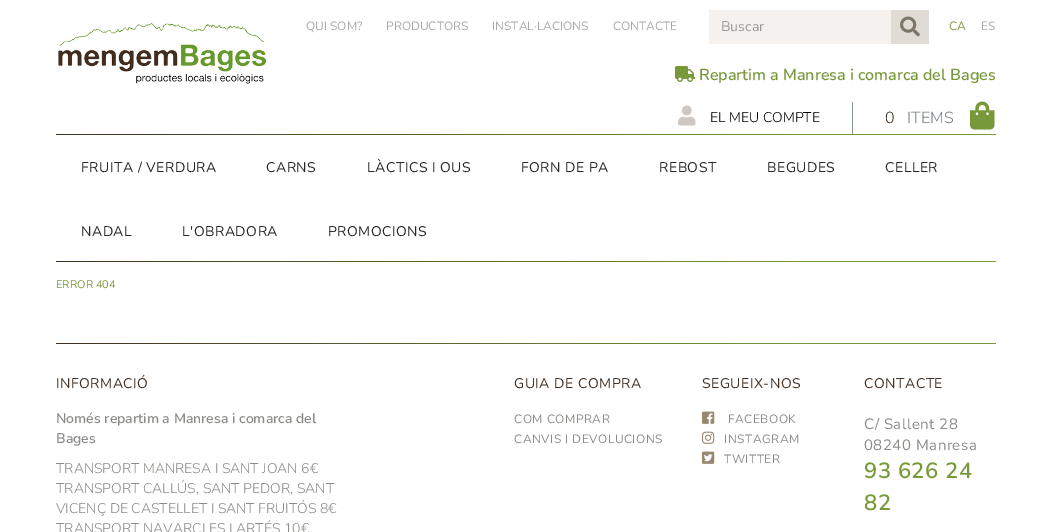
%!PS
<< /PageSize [1051 532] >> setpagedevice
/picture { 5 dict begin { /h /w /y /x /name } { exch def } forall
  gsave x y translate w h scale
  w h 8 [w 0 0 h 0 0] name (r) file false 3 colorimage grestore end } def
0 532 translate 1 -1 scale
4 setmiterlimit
1 setgray
0 0 1051 532 rectfill
(img1.rgb) 58 23 209 61 picture
/Nunito-Regular [12 0 0 -12 0 0] selectfont
0.675 0.655 0.655 setrgbcolor
306 30 moveto (QUI SOM?) show
386 30 moveto (PRODUCTORS) show
492 30 moveto (INSTAL·LACIONS) show
613 30 moveto (CONTACTE) show
0.957 0.945 0.933 setrgbcolor
709 10 182 34 rectfill
/Nunito-Regular [14 0 0 -14 0 0] selectfont
0.6 setgray
721 31 moveto (Buscar) show
0.878 0.859 0.835 setrgbcolor
891 10 38 34 rectfill
(img2.rgb) 900 16 20 21 picture
/Nunito-Regular [12 0 0 -12 0 0] selectfont
0.471 0.6 0.227 setrgbcolor
949 30 moveto 0.25 0 (CA) ashow
0.675 0.655 0.655 setrgbcolor
981 30 moveto 0.25 0 (ES) ashow
(img3.rgb) 675 66 20 16 picture
/Nunito-SemiBold [16 0 0 -16 0 0] selectfont
0.471 0.6 0.227 setrgbcolor
699 80 moveto (Repartim a Manresa i comarca del Bages) show
0.545 0.596 0.624 setrgbcolor
852 102 1 32 rectfill
(img4.rgb) 678 105 18 21 picture
/Nunito-Light [14 0 0 -14 0 0] selectfont
0 setgray
710 122 moveto (EL MEU COMPTE) show
/Nunito-Light [16 0 0 -16 0 0] selectfont
0.251 0.192 0.141 setrgbcolor
885 123 moveto 0.25 0 (0) ashow
0.463 0.494 0.514 setrgbcolor
907 123 moveto 0.25 0 (ITEMS) ashow
(img5.rgb) 970 101 25 29 picture
gsave newpath 56 134 moveto 996 134 lineto 996 135 lineto 56 135 lineto closepath clip newpath
<< /ShadingType 2 /ColorSpace /DeviceRGB /Coords [56 135 996 134] /Extend [true true] /Function << /FunctionType 3 /Domain [0 1] /Functions [<< /FunctionType 2 /Domain [0 1] /C0 [0.251 0.192 0.141] /C1 [0.471 0.6 0.227] /N 1 >> << /FunctionType 2 /Domain [0 1] /C0 [0.471 0.6 0.227] /C1 [0.471 0.6 0.227] /N 1 >>] /Bounds [0.8] /Encode [0 1 0 1] >> >> shfill grestore
/Nunito-Regular [14 0 0 -14 0 0] selectfont
0.153 setgray
81 172 moveto 0.5 0 (FRUITA / VERDURA) ashow
266 172 moveto 0.5 0 (CARNS) ashow
367 172 moveto 0.5 0 (LÀCTICS I OUS) ashow
521 172 moveto 0.5 0 (FORN DE PA) ashow
659 172 moveto 0.5 0 (REBOST) ashow
767 172 moveto 0.5 0 (BEGUDES) ashow
885 172 moveto 0.5 0 (CELLER) ashow
81 236 moveto 0.5 0 (NADAL) ashow
182 236 moveto 0.5 0 (L'OBRADORA) ashow
328 236 moveto 0.5 0 (PROMOCIONS) ashow
gsave newpath 56 261 moveto 996 261 lineto 996 262 lineto 56 262 lineto closepath clip newpath
<< /ShadingType 2 /ColorSpace /DeviceRGB /Coords [56 262 996 261] /Extend [true true] /Function << /FunctionType 3 /Domain [0 1] /Functions [<< /FunctionType 2 /Domain [0 1] /C0 [0.251 0.192 0.141] /C1 [0.471 0.6 0.227] /N 1 >> << /FunctionType 2 /Domain [0 1] /C0 [0.471 0.6 0.227] /C1 [0.471 0.6 0.227] /N 1 >>] /Bounds [0.8] /Encode [0 1 0 1] >> >> shfill grestore
/Nunito-Regular [11 0 0 -11 0 0] selectfont
0.471 0.6 0.227 setrgbcolor
56 288 moveto (ERROR 404) show
gsave newpath 56 343 moveto 996 343 lineto 996 344 lineto 56 344 lineto closepath clip newpath
<< /ShadingType 2 /ColorSpace /DeviceRGB /Coords [56 344 996 343] /Extend [true true] /Function << /FunctionType 3 /Domain [0 1] /Functions [<< /FunctionType 2 /Domain [0 1] /C0 [0.251 0.192 0.141] /C1 [0.471 0.6 0.227] /N 1 >> << /FunctionType 2 /Domain [0 1] /C0 [0.471 0.6 0.227] /C1 [0.471 0.6 0.227] /N 1 >>] /Bounds [0.8] /Encode [0 1 0 1] >> >> shfill grestore
/Nunito-Regular [14 0 0 -14 0 0] selectfont
0.251 0.192 0.141 setrgbcolor
56 388 moveto 0.5 0 (INFORMACIÓ) ashow
/Nunito-SemiBold [14 0 0 -14 0 0] selectfont
0.549 0.545 0.533 setrgbcolor
56 423 moveto (Només repartim a Manresa i comarca del) show
56 443 moveto (Bages) show
/Nunito-Light [14 0 0 -14 0 0] selectfont
56 473 moveto (TRANSPORT MANRESA I SANT JOAN 6€) show
56 493 moveto (TRANSPORT CALLÚS, SANT PEDOR, SANT) show
56 513 moveto (VICENÇ DE CASTELLET I SANT FRUITÓS 8€) show
56 533 moveto (TRANSPORT NAVARCLES I ARTÉS 10€) show
/Nunito-Regular [14 0 0 -14 0 0] selectfont
0.251 0.192 0.141 setrgbcolor
514 388 moveto 0.5 0 (GUIA DE COMPRA) ashow
/Nunito-Regular [12 0 0 -12 0 0] selectfont
0.549 0.545 0.533 setrgbcolor
514 423 moveto 0.5 0 (COM COMPRAR) ashow
514 443 moveto 0.5 0 (CANVIS I DEVOLUCIONS) ashow
/Nunito-Regular [14 0 0 -14 0 0] selectfont
0.251 0.192 0.141 setrgbcolor
702 388 moveto 0.5 0 (SEGUEIX-NOS) ashow
(img6.rgb) 702 411 13 13 picture
/Nunito-Regular [12 0 0 -12 0 0] selectfont
0.549 0.545 0.533 setrgbcolor
728 423 moveto 0.5 0 (FACEBOOK) ashow
(img7.rgb) 702 431 13 13 picture
724 443 moveto 0.5 0 (INSTAGRAM) ashow
(img8.rgb) 702 451 13 13 picture
724 463 moveto 0.5 0 (TWITTER) ashow
/Nunito-Regular [14 0 0 -14 0 0] selectfont
0.251 0.192 0.141 setrgbcolor
864 388 moveto 0.5 0 (CONTACTE) ashow
/Nunito-Regular [15 0 0 -15 0 0] selectfont
0.549 0.545 0.533 setrgbcolor
864 429 moveto 0.5 0 (C/ Sallent 28) ashow
864 450 moveto 0.5 0 (08240 Manresa) ashow
/Nunito-SemiBold [22 0 0 -22 0 0] selectfont
0.471 0.6 0.227 setrgbcolor
864 478 moveto 0.5 0 (93 626 24) ashow
864 510 moveto 0.5 0 (82) ashow
showpage
